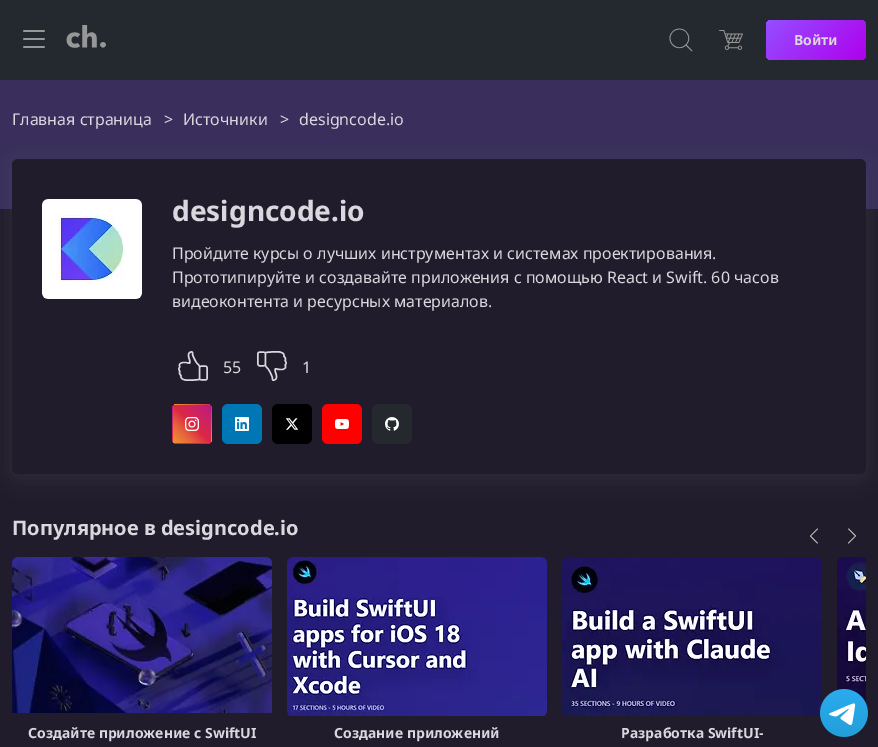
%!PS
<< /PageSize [878 747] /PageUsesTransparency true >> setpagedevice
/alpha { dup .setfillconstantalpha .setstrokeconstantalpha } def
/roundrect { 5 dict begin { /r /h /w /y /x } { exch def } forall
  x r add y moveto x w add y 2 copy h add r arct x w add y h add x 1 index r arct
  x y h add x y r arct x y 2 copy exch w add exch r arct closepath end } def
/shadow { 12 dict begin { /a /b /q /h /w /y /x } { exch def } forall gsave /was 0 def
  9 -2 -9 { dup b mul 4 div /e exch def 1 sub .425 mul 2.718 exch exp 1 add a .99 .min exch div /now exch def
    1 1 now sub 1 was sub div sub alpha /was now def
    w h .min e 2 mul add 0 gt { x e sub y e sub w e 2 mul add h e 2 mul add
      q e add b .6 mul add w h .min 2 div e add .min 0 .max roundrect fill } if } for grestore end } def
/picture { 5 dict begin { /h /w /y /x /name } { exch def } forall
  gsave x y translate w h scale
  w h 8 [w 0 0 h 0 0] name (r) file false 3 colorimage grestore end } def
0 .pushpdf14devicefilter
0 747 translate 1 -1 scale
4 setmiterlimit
0.125 0.11 0.169 setrgbcolor
0 0 878 747 rectfill
0.141 0.161 0.184 setrgbcolor
0 0 878 80 rectfill
(img1.rgb) 23 30 22 18 picture
(img2.rgb) 66 25 40 23 picture
(img3.rgb) 669 28 24 24 picture
(img4.rgb) 719 30 24 20 picture
gsave 766 20 100 40 6 roundrect clip newpath
<< /ShadingType 2 /ColorSpace /DeviceRGB /Coords [780 5.4 852 75] /Extend [true true] /Function << /FunctionType 2 /Domain [0 1] /C0 [0.58 0.31 1] /C1 [0.686 0 0.929] /N 1 >> >> shfill grestore
/NotoSans-Bold [14 0 0 -14 0 0] selectfont
0.855 0.847 0.871 setrgbcolor
794 45 moveto (Войти) show
0.224 0.18 0.361 setrgbcolor
0 80 878 129 rectfill
/NotoSans-Regular [16 0 0 -16 0 0] selectfont
0.855 0.847 0.871 setrgbcolor
12 125 moveto (Главная страница) show
164 125 moveto (>) show
183 125 moveto (Источники) show
280 125 moveto (>) show
299 125 moveto (designcode.io) show
0.459 setgray
12 162 854 315 6 10.5 0.2 shadow
0.125 0.11 0.169 setrgbcolor
12 159 854 315 6 roundrect fill
(img5.rgb) 42 199 100 100 picture
/NotoSans-Bold [28 0 0 -28 0 0] selectfont
0.855 0.847 0.871 setrgbcolor
172 221 moveto (designcode.io) show
/NotoSans-Regular [16 0 0 -16 0 0] selectfont
172 259 moveto (Пройдите курсы о лучших инструментах и системах проектирования.) show
172 283 moveto (Прототипируйте и создавайте приложения с помощью React и Swift. 60 часов) show
172 307 moveto (видеоконтента и ресурсных материалов.) show
(img6.rgb) 178 351 30 30 picture
223 373 moveto (55) show
(img7.rgb) 257 351 30 30 picture
302 373 moveto (1) show
gsave
172 404 40 40 6 roundrect clip newpath
gsave newpath 173 404 moveto 211 404 lineto 211 405 lineto 173 405 lineto closepath clip newpath
<< /ShadingType 2 /ColorSpace /DeviceRGB /Coords [173 405 211 367] /Extend [true true] /Function << /FunctionType 3 /Domain [0 1] /Functions [<< /FunctionType 2 /Domain [0 1] /C0 [0.941 0.58 0.2] /C1 [0.902 0.408 0.235] /N 1 >> << /FunctionType 2 /Domain [0 1] /C0 [0.902 0.408 0.235] /C1 [0.863 0.153 0.263] /N 1 >> << /FunctionType 2 /Domain [0 1] /C0 [0.863 0.153 0.263] /C1 [0.8 0.137 0.4] /N 1 >> << /FunctionType 2 /Domain [0 1] /C0 [0.8 0.137 0.4] /C1 [0.737 0.094 0.533] /N 1 >>] /Bounds [0.25 0.5 0.75] /Encode [0 1 0 1 0 1 0 1] >> >> shfill grestore
gsave newpath 172 405 moveto 173 405 lineto 173 443 lineto 172 443 lineto closepath clip newpath
<< /ShadingType 2 /ColorSpace /DeviceRGB /Coords [135 443 173 405] /Extend [true true] /Function << /FunctionType 3 /Domain [0 1] /Functions [<< /FunctionType 2 /Domain [0 1] /C0 [0.941 0.58 0.2] /C1 [0.902 0.408 0.235] /N 1 >> << /FunctionType 2 /Domain [0 1] /C0 [0.902 0.408 0.235] /C1 [0.863 0.153 0.263] /N 1 >> << /FunctionType 2 /Domain [0 1] /C0 [0.863 0.153 0.263] /C1 [0.8 0.137 0.4] /N 1 >> << /FunctionType 2 /Domain [0 1] /C0 [0.8 0.137 0.4] /C1 [0.737 0.094 0.533] /N 1 >>] /Bounds [0.25 0.5 0.75] /Encode [0 1 0 1 0 1 0 1] >> >> shfill grestore
gsave newpath 173 405 moveto 211 405 lineto 211 443 lineto 173 443 lineto closepath clip newpath
<< /ShadingType 2 /ColorSpace /DeviceRGB /Coords [173 443 211 405] /Extend [true true] /Function << /FunctionType 3 /Domain [0 1] /Functions [<< /FunctionType 2 /Domain [0 1] /C0 [0.941 0.58 0.2] /C1 [0.902 0.408 0.235] /N 1 >> << /FunctionType 2 /Domain [0 1] /C0 [0.902 0.408 0.235] /C1 [0.863 0.153 0.263] /N 1 >> << /FunctionType 2 /Domain [0 1] /C0 [0.863 0.153 0.263] /C1 [0.8 0.137 0.4] /N 1 >> << /FunctionType 2 /Domain [0 1] /C0 [0.8 0.137 0.4] /C1 [0.737 0.094 0.533] /N 1 >>] /Bounds [0.25 0.5 0.75] /Encode [0 1 0 1 0 1 0 1] >> >> shfill grestore
gsave newpath 211 405 moveto 212 405 lineto 212 443 lineto 211 443 lineto closepath clip newpath
<< /ShadingType 2 /ColorSpace /DeviceRGB /Coords [211 443 249 405] /Extend [true true] /Function << /FunctionType 3 /Domain [0 1] /Functions [<< /FunctionType 2 /Domain [0 1] /C0 [0.941 0.58 0.2] /C1 [0.902 0.408 0.235] /N 1 >> << /FunctionType 2 /Domain [0 1] /C0 [0.902 0.408 0.235] /C1 [0.863 0.153 0.263] /N 1 >> << /FunctionType 2 /Domain [0 1] /C0 [0.863 0.153 0.263] /C1 [0.8 0.137 0.4] /N 1 >> << /FunctionType 2 /Domain [0 1] /C0 [0.8 0.137 0.4] /C1 [0.737 0.094 0.533] /N 1 >>] /Bounds [0.25 0.5 0.75] /Encode [0 1 0 1 0 1 0 1] >> >> shfill grestore
gsave newpath 173 443 moveto 211 443 lineto 211 444 lineto 173 444 lineto closepath clip newpath
<< /ShadingType 2 /ColorSpace /DeviceRGB /Coords [173 481 211 443] /Extend [true true] /Function << /FunctionType 3 /Domain [0 1] /Functions [<< /FunctionType 2 /Domain [0 1] /C0 [0.941 0.58 0.2] /C1 [0.902 0.408 0.235] /N 1 >> << /FunctionType 2 /Domain [0 1] /C0 [0.902 0.408 0.235] /C1 [0.863 0.153 0.263] /N 1 >> << /FunctionType 2 /Domain [0 1] /C0 [0.863 0.153 0.263] /C1 [0.8 0.137 0.4] /N 1 >> << /FunctionType 2 /Domain [0 1] /C0 [0.8 0.137 0.4] /C1 [0.737 0.094 0.533] /N 1 >>] /Bounds [0.25 0.5 0.75] /Encode [0 1 0 1 0 1 0 1] >> >> shfill grestore
grestore
(img8.rgb) 185 417 14 14 picture
0 0.467 0.71 setrgbcolor
222 404 40 40 6 roundrect fill
(img9.rgb) 235 417 14 14 picture
0 setgray
272 404 40 40 6 roundrect fill
(img10.rgb) 285 418 14 12 picture
1 0 0 setrgbcolor
322 404 40 40 6 roundrect fill
(img11.rgb) 335 419 14 10 picture
0.141 0.161 0.18 setrgbcolor
372 404 40 40 6 roundrect fill
(img12.rgb) 385 417 14 14 picture
/NotoSans-Bold [20 0 0 -20 0 0] selectfont
0.855 0.847 0.871 setrgbcolor
12 535 moveto (Популярное в designcode.io) show
(img13.rgb) 810 528 8 16 picture
(img14.rgb) 848 528 8 16 picture
(img15.rgb) 837 557 29 147 picture
(img16.rgb) 12 557 260 156 picture
/NotoSans-Bold [14 0 0 -14 0 0] selectfont
28 738 moveto (Создайте приложение с SwiftUI) show
(img17.rgb) 287 557 260 159 picture
334 738 moveto (Создание приложений) show
(img18.rgb) 562 557 260 159 picture
621 738 moveto (Разработка SwiftUI-) show
(img19.rgb) 820 689 48 48 picture
.poppdf14devicefilter showpage
